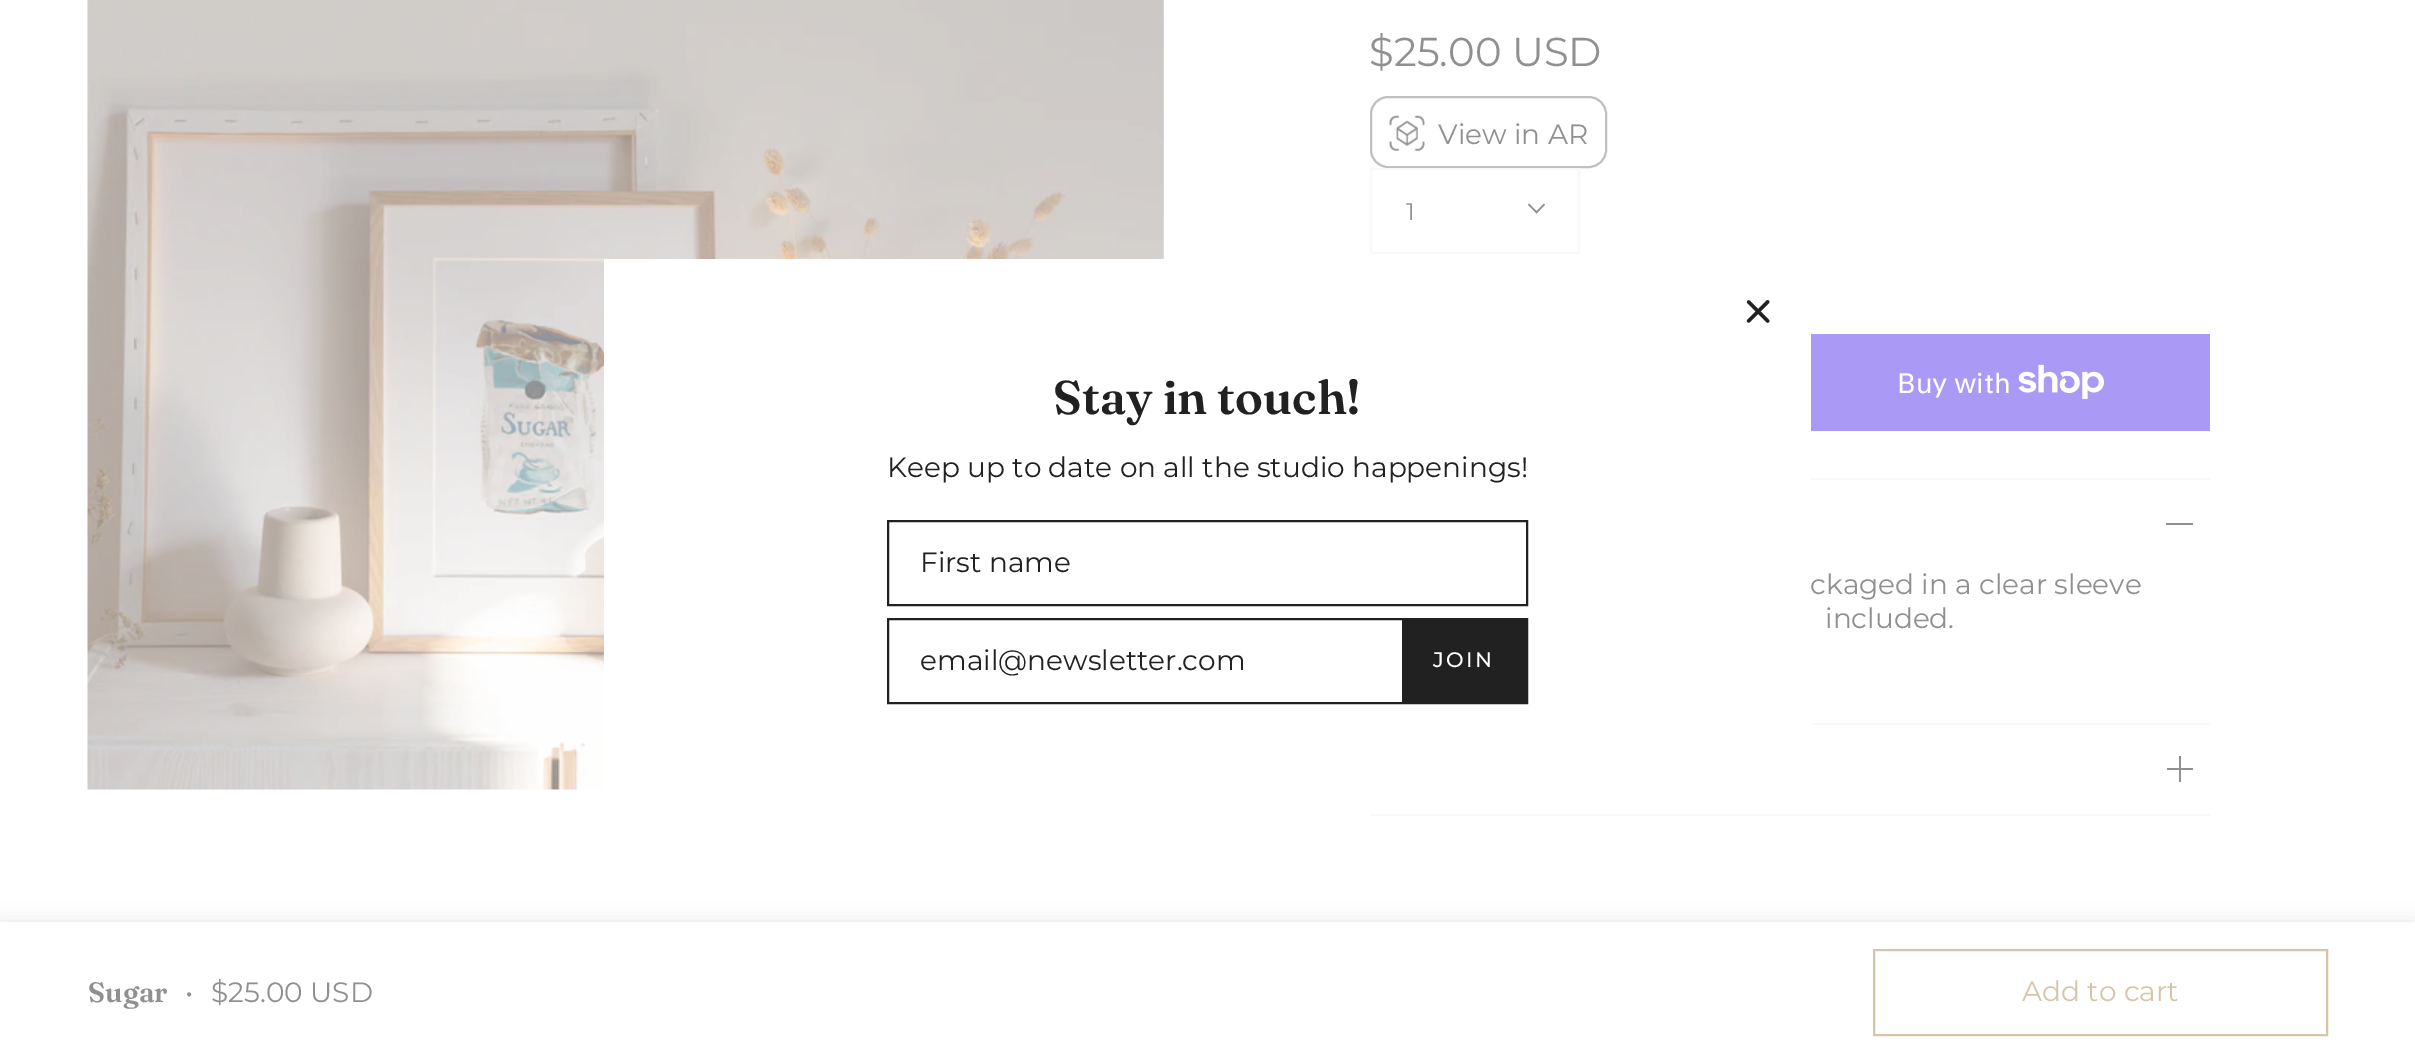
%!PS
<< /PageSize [2415 1062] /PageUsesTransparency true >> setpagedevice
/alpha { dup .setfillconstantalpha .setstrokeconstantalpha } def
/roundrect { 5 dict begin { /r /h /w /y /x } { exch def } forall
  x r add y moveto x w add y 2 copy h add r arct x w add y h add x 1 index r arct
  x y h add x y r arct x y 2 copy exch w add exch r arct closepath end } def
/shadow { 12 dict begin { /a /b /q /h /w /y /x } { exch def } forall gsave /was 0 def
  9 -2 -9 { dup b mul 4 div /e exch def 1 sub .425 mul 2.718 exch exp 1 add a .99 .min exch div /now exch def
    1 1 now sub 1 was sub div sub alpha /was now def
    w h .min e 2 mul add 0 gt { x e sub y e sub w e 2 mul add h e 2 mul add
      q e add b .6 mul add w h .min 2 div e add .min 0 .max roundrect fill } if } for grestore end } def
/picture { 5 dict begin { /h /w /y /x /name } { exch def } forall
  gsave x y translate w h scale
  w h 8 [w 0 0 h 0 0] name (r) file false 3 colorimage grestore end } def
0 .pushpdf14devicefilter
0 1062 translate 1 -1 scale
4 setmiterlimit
1 setgray
0 0 2415 1062 rectfill
(img1.rgb) 87 0 1077 790 picture
/Montserrat-Regular [40.25 0 0 -40.25 0 0] selectfont
0.565 setgray
1369 66 moveto ($25.00 USD) show
0.753 setgray
2 setlinewidth
1371 97 235 70 17 roundrect stroke
(img2.rgb) 1388 115 37 36 picture
/Montserrat-Regular [28 0 0 -28 0 0] selectfont
0.565 setgray
1438 144 moveto (View in AR) show
0.973 setgray
1371 169 208 84 rectstroke
/Montserrat-Regular [24 0 0 -24 0 0] selectfont
0.565 setgray
1406 220 moveto (1) show
newpath 1535.5 212 moveto 1544 203.5 lineto 1545 205 lineto 1536.5 213.5 lineto closepath fill
newpath 1528 205 moveto 1529 203.5 lineto 1537.5 212 lineto 1536.5 213.5 lineto closepath fill
0.667 0.6 0.961 setrgbcolor
1811 334 399 97 rectfill
/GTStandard-Regular [28 0 0 -28 0 0] selectfont
1 setgray
1897 393 moveto (Buy with) show
(img3.rgb) 2018 364 86 35 picture
0.973 setgray
1370 814 840 2 rectfill
1811 478 399 2 rectfill
0.565 setgray
2166 523 27 2 rectfill
/Montserrat-Regular [28 0 0 -28 0 0] selectfont
1810 594 moveto (ckaged in a clear sleeve) show
1825 628 moveto (included.) show
0.973 setgray
1811 723 399 2 rectfill
0.565 setgray
2167 768 26 2 rectfill
2179 756 2 26 rectfill
0.502 setgray
0 922 2415 140 0 9 0.2 shadow
1 setgray
0 922 2415 140 rectfill
/Fraunces-SemiBold [28 0 0 -28 0 0] selectfont
0.565 setgray
88 1002 moveto (Sugar) show
/Montserrat-Regular [28 0 0 -28 0 0] selectfont
185 1002 moveto (•) show
211 1002 moveto ($25.00 USD) show
0.835 0.776 0.663 setrgbcolor
1874 950 453 85 rectstroke
2022 1001 moveto (Add to cart) show
1 setgray
604 259 1207 531 rectfill
(img4.rgb) 1746 300 24 23 picture
/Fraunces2-SemiBold [47.25 0 0 -47.25 0 0] selectfont
0.129 setgray
1053 414 moveto (Stay in touch!) show
/Montserrat-Regular [28 0 0 -28 0 0] selectfont
887 477 moveto (Keep up to date on all the studio happenings!) show
888 521 639 84 rectstroke
920 572 moveto (First name) show
888 619 639 84 rectstroke
920 670 moveto (email@newsletter.com) show
1402 620 124 82 rectfill
/Montserrat-Medium [21 0 0 -21 0 0] selectfont
1 setgray
1433 667 moveto 2.5 0 (JOIN) ashow
.poppdf14devicefilter showpage
